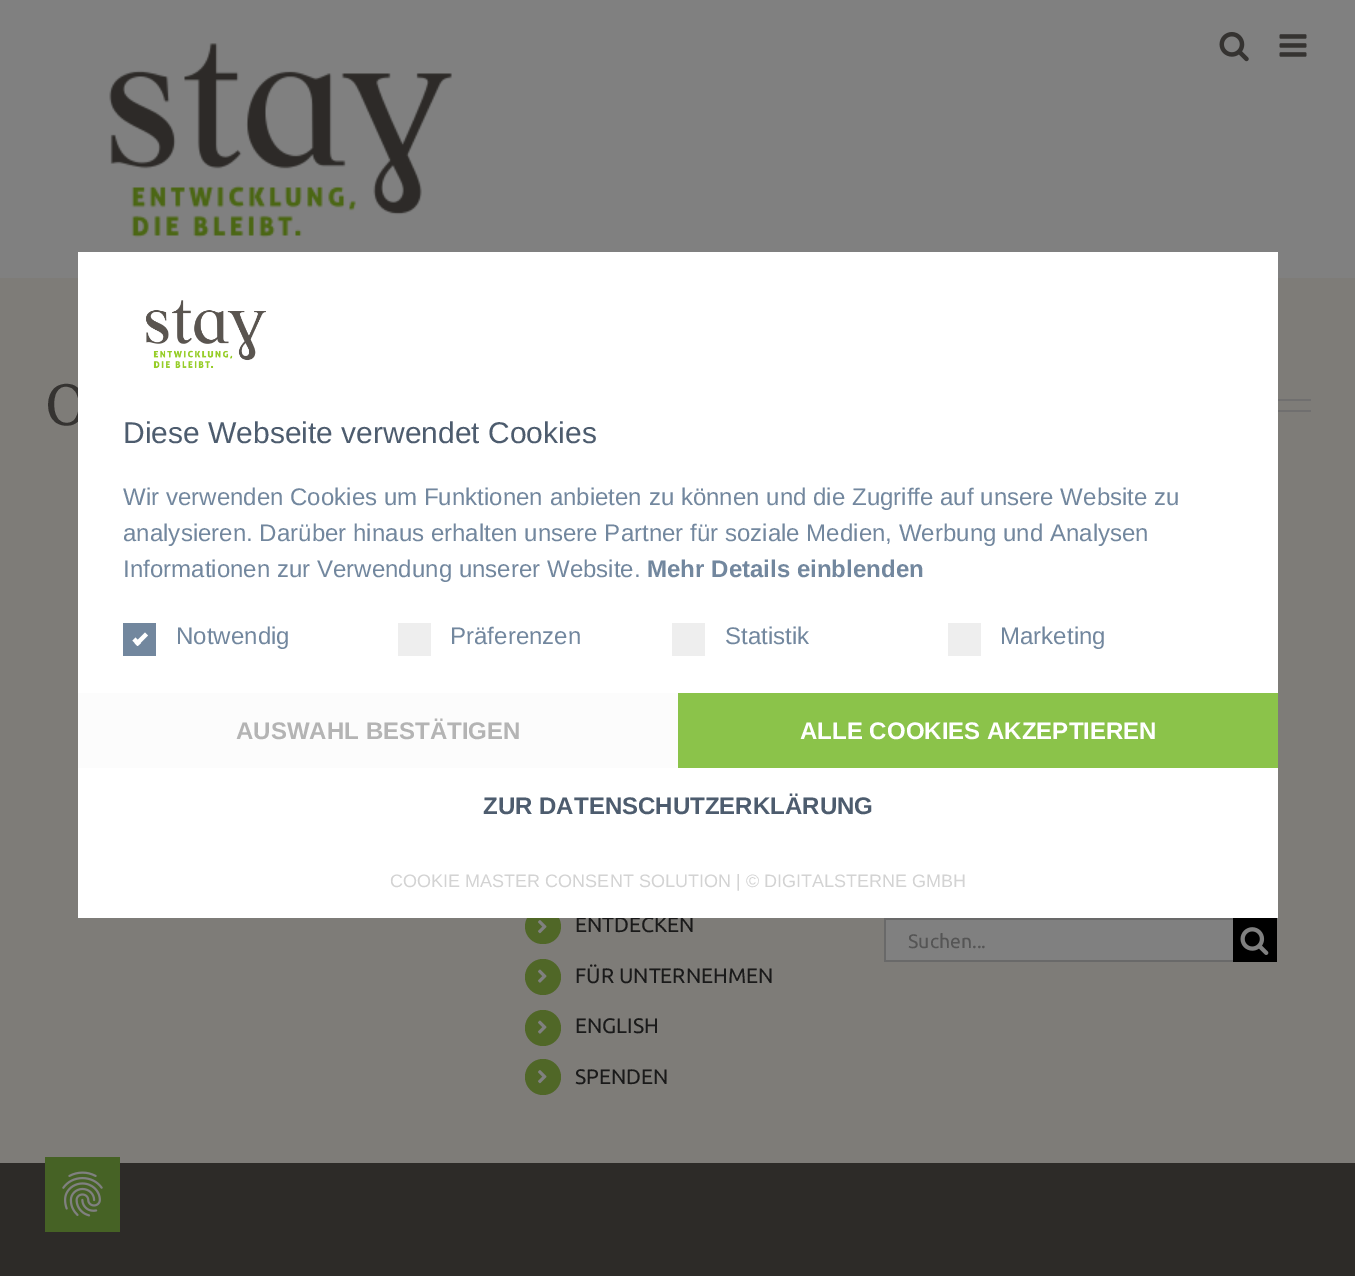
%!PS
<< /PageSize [1355 1276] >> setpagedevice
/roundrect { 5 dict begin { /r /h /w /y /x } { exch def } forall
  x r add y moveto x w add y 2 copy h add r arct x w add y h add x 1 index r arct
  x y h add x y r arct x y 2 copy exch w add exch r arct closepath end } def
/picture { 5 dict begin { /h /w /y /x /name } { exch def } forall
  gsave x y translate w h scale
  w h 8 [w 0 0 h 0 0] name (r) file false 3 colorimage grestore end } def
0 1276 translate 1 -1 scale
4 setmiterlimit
0.494 0.486 0.471 setrgbcolor
0 0 1355 1276 rectfill
0.502 setgray
0 0 1355 278 rectfill
(img1.rgb) 109 43 343 195 picture
(img2.rgb) 1219 32 30 30 picture
(img3.rgb) 1279 34 28 23 picture
/PTSerif-Regular [58 0 0 -58 0 0] selectfont
0.208 0.2 0.192 setrgbcolor
45 425 moveto (O) show
0.439 0.435 0.435 setrgbcolor
1278 399 33 2 rectfill
1278 410 33 2 rectfill
0.314 0.404 0.153 setrgbcolor
525 909 36 35 17.5 roundrect fill
(img4.rgb) 538 920 9 14 picture
/Ubuntu-Regular [21 0 0 -21 0 0] selectfont
0.102 setgray
575 932 moveto (ENTDECKEN) show
0.314 0.404 0.153 setrgbcolor
newpath 543 977 18 0 360 arc closepath fill
(img5.rgb) 538 969 9 14 picture
0.102 setgray
575 983 moveto (FÜR UNTERNEHMEN) show
0.314 0.404 0.153 setrgbcolor
newpath 543 1028 18 0 360 arc closepath fill
(img5.rgb) 538 1020 9 14 picture
0.102 setgray
575 1033 moveto (ENGLISH) show
0.314 0.404 0.153 setrgbcolor
newpath 543 1077 18 0 360 arc closepath fill
(img4.rgb) 538 1070 9 14 picture
0.102 setgray
575 1084 moveto (SPENDEN) show
0.502 setgray
886 920 347 40 rectfill
0.412 setgray
884 918 349 2 rectfill
884 960 349 2 rectfill
884 918 2 44 rectfill
/Ubuntu-Regular [19.5 0 0 -19.5 0 0] selectfont
0.333 setgray
908 948 moveto (Suchen...) show
0 setgray
1233 918 44 44 rectfill
(img6.rgb) 1240 927 29 28 picture
0.176 0.169 0.157 setrgbcolor
0 1163 1355 113 rectfill
1 setgray
78 252 1200 441 rectfill
(img7.rgb) 146 300 120 69 picture
/LiberationSans-Regular [30 0 0 -30 0 0] selectfont
0.302 0.361 0.431 setrgbcolor
123 443 moveto (Diese Webseite verwendet Cookies) show
/LiberationSans-Regular [24 0 0 -24 0 0] selectfont
0.447 0.529 0.62 setrgbcolor
123 505 moveto 0.03 0 (Wir verwenden Cookies um Funktionen anbieten zu können und die Zugriffe auf unsere Website zu) ashow
123 541 moveto 0.03 0 (analysieren. Darüber hinaus erhalten unsere Partner für soziale Medien, Werbung und Analysen) ashow
123 577 moveto 0.03 0 (Informationen zur Verwendung unserer Website.) ashow
/LiberationSans-Bold [24 0 0 -24 0 0] selectfont
647 577 moveto 0.03 0 (Mehr Details einblenden) ashow
123 623 33 33 rectfill
1 setgray
newpath 145 632.5 moveto 148 635.5 lineto 137.5 646 lineto 134.5 643 lineto closepath fill
newpath 135.5 637.5 moveto 141 643 lineto 137.5 646 lineto 132.5 640.5 lineto closepath fill
/LiberationSans-Regular [24 0 0 -24 0 0] selectfont
0.447 0.529 0.62 setrgbcolor
176 644 moveto 0.03 0 (Notwendig) ashow
0.933 setgray
398 623 33 33 rectfill
0.447 0.529 0.62 setrgbcolor
450 644 moveto 0.03 0 (Präferenzen) ashow
0.933 setgray
672 623 33 33 rectfill
0.447 0.529 0.62 setrgbcolor
725 644 moveto 0.03 0 (Statistik) ashow
0.933 setgray
948 623 33 33 rectfill
0.447 0.529 0.62 setrgbcolor
1000 644 moveto 0.03 0 (Marketing) ashow
0.988 setgray
78 693 600 75 rectfill
/LiberationSans-Bold [24 0 0 -24 0 0] selectfont
0.706 setgray
236 739 moveto 0.03 0 (AUSWAHL BESTÄTIGEN) ashow
0.545 0.765 0.29 setrgbcolor
678 693 600 75 rectfill
1 setgray
800 739 moveto 0.03 0 (ALLE COOKIES AKZEPTIEREN) ashow
78 768 1200 150 rectfill
0.302 0.361 0.431 setrgbcolor
483 814 moveto 0.03 0 (ZUR DATENSCHUTZERKLÄRUNG) ashow
/LiberationSans-Regular [18 0 0 -18 0 0] selectfont
0.827 setgray
390 887 moveto 0.03 0 (COOKIE MASTER CONSENT SOLUTION | © DIGITALSTERNE GMBH) ashow
0.275 0.384 0.145 setrgbcolor
45 1157 75 75 rectfill
(img8.rgb) 62 1171 41 46 picture
showpage
